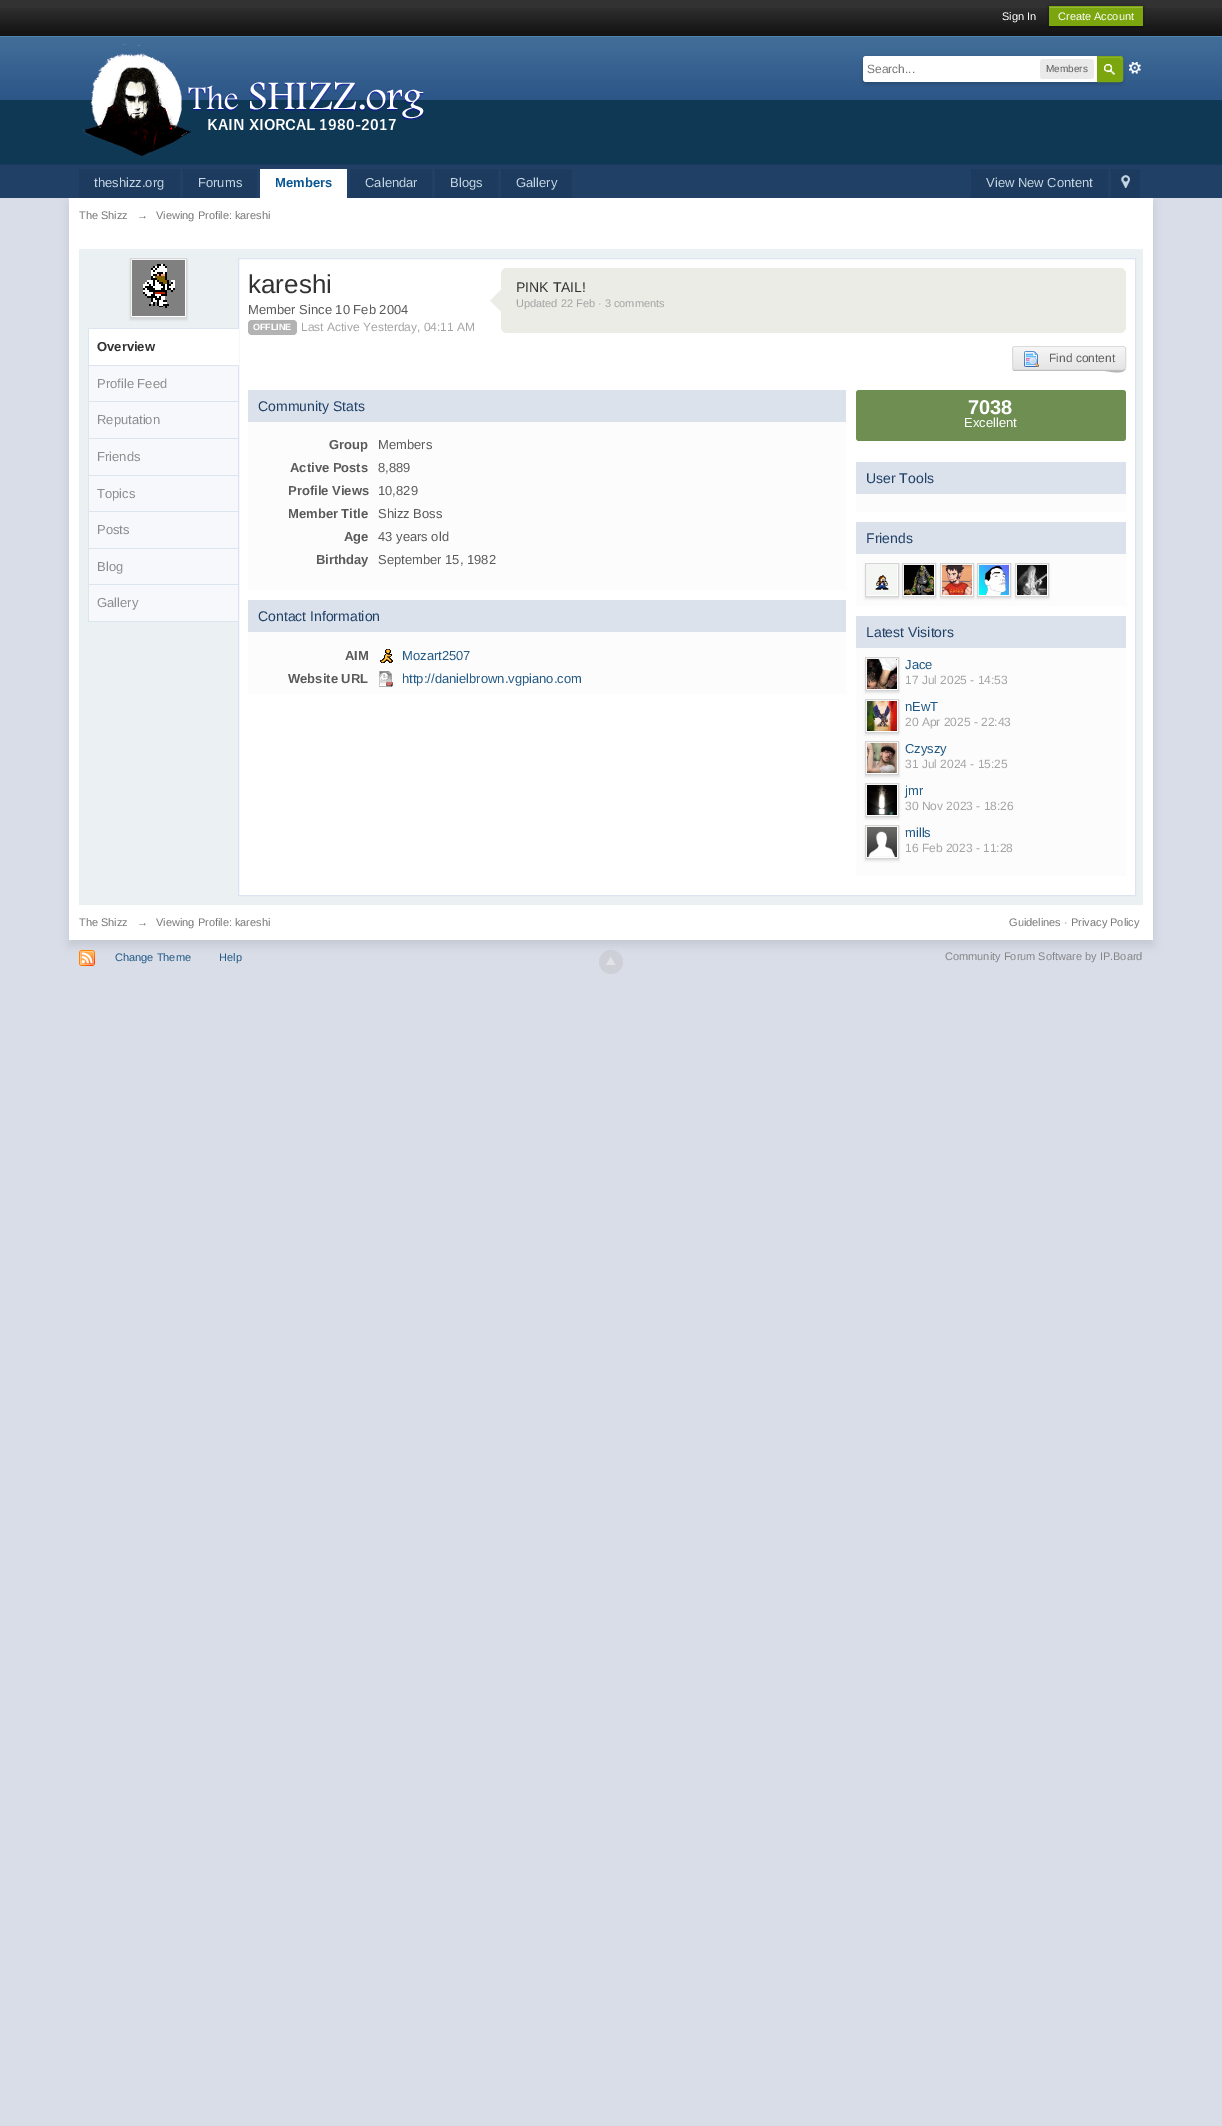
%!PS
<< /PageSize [1222 2126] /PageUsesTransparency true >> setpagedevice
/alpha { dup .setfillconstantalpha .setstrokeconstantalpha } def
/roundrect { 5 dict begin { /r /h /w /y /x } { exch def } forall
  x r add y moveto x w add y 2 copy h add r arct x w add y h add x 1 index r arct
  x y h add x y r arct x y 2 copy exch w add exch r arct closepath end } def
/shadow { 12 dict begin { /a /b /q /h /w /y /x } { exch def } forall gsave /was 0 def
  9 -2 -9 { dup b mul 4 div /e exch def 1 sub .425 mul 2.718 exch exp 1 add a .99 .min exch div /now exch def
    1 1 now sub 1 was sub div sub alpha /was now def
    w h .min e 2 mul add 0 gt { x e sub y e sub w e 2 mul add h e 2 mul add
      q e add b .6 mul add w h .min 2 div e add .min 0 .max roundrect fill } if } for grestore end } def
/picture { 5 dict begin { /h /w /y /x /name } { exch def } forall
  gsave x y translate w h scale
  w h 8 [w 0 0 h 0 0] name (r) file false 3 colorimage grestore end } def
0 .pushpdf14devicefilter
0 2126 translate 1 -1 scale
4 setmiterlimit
0.847 0.867 0.91 setrgbcolor
0 0 1222 2126 rectfill
0.196 setgray
0 0 1222 8 rectfill
(img1.rgb) 0 8 1222 28 picture
/LiberationSans-Regular [11 0 0 -11 0 0] selectfont
1 setgray
1002 20 moveto (Sign In) show
0 setgray
1049 7 94 20 0 2 0.4 shadow
0.482 0.651 0.051 setrgbcolor
1049 6 94 20 rectfill
0.584 0.722 0.239 setrgbcolor
1050 7 92 1 rectfill
1 setgray
1058 20 moveto (Create Account) show
0.059 0.22 0.329 setrgbcolor
0 100 1222 64 rectfill
(img2.rgb) 0 36 1222 64 picture
0.106 0.216 0.349 setrgbcolor
0 164 1222 1 rectfill
(img3.rgb) 83 44 342 112 picture
(img5.rgb) 1129 62 12 12 picture
0 setgray
863 58 260 26 4 2 0.2 shadow
1 setgray
newpath 866 56 moveto 1119 56 lineto 1121 56 1123 58 1123 60 curveto 1123 78 lineto 1123 80 1121 82 1119 82 curveto 866 82 lineto 864.5 82 863 80.5 863 79 curveto 863 59 lineto 863 57.5 864.5 56 866 56 curveto closepath fill
/LiberationSans-Regular [12 0 0 -12 0 0] selectfont
0.467 setgray
867 73 moveto (Search...) show
0.918 setgray
1040 59 54 20 3 roundrect fill
/LiberationSans-Regular [10 0 0 -10 0 0] selectfont
0.353 setgray
1046 72 moveto (Members) show
0.482 0.651 0.051 setrgbcolor
newpath 1097 56 moveto 1120 56 lineto 1121.5 56 1123 57.5 1123 59 curveto 1123 79 lineto 1123 80.5 1121.5 82 1120 82 curveto 1097 82 lineto closepath fill
(img4.rgb) 1104 64 11 11 picture
0.584 0.722 0.239 setrgbcolor
newpath 1098 58 moveto 1120 58 lineto 1121 58 1122 59 1122 60 curveto 1122 59 lineto 1122 58 1121 57 1120 57 curveto 1098 57 lineto closepath fill
0.482 0.651 0.051 setrgbcolor
newpath 1097.5 56.5 moveto 1120 56.5 lineto 1121.5 56.5 1122.5 57.5 1122.5 59 curveto 1122.5 79 lineto 1122.5 80.5 1121.5 81.5 1120 81.5 curveto 1097.5 81.5 lineto closepath stroke
0.125 0.251 0.4 setrgbcolor
0 165 1222 33 rectfill
0 setgray
69 203 1084 742 0 4.5 0.1 shadow
0.11 0.231 0.373 setrgbcolor
79 169 101 29 rectfill
/LiberationSans-Regular [13 0 0 -13 0 0] selectfont
0.773 0.835 0.886 setrgbcolor
94 187 moveto (theshizz.org) show
0.11 0.231 0.373 setrgbcolor
183 169 74 29 rectfill
0.773 0.835 0.886 setrgbcolor
198 187 moveto (Forums) show
1 setgray
260 169 87 29 rectfill
/LiberationSans-Bold [13 0 0 -13 0 0] selectfont
0.043 0.341 0.58 setrgbcolor
275 187 moveto (Members) show
0.11 0.231 0.373 setrgbcolor
350 169 82 29 rectfill
/LiberationSans-Regular [13 0 0 -13 0 0] selectfont
0.773 0.835 0.886 setrgbcolor
365 187 moveto (Calendar) show
0.11 0.231 0.373 setrgbcolor
435 169 63 29 rectfill
0.773 0.835 0.886 setrgbcolor
450 187 moveto (Blogs) show
0.11 0.231 0.373 setrgbcolor
501 169 71 29 rectfill
0.773 0.835 0.886 setrgbcolor
516 187 moveto (Gallery) show
0.11 0.231 0.373 setrgbcolor
971 169 137 29 rectfill
0.773 0.835 0.886 setrgbcolor
986 187 moveto (View New Content) show
0.11 0.231 0.373 setrgbcolor
1111 169 29 29 rectfill
(img6.rgb) 1121 175 9 13 picture
1 setgray
69 198 1084 742 rectfill
/LiberationSans-Regular [11 0 0 -11 0 0] selectfont
0.467 setgray
79 219 moveto (The Shizz) show
137 219 moveto (→) show
156 219 moveto (Viewing Profile: kareshi) show
0.922 0.941 0.953 setrgbcolor
79 249 1064 656 rectfill
0 setgray
130 260 57 60 0 1 0.1 shadow
1 setgray
newpath 130.5 258.5 moveto 186.5 258.5 lineto 186.5 317.5 lineto 130.5 317.5 lineto closepath gsave fill grestore
0.835 setgray
stroke
(img7.rgb) 132 260 53 56 picture
0.859 0.894 0.937 setrgbcolor
88 328 150 1 rectfill
88 328 1 294 rectfill
89 365 149 1 rectfill
1 setgray
newpath 238.5 258.5 moveto 1135.5 258.5 lineto 1135.5 895.5 lineto 238.5 895.5 lineto closepath gsave fill grestore
0.859 0.894 0.937 setrgbcolor
stroke
1 setgray
89 329 150 36 rectfill
/LiberationSans-Bold [13 0 0 -13 0 0] selectfont
0.196 setgray
97 351 moveto (Overview) show
0.965 0.973 0.984 setrgbcolor
89 366 149 35 rectfill
0.859 0.894 0.937 setrgbcolor
89 401 149 1 rectfill
/LiberationSans-Regular [13 0 0 -13 0 0] selectfont
0.553 setgray
97 388 moveto (Profile Feed) show
0.965 0.973 0.984 setrgbcolor
89 402 149 36 rectfill
0.859 0.894 0.937 setrgbcolor
89 438 149 1 rectfill
0.553 setgray
97 424 moveto (Reputation) show
0.965 0.973 0.984 setrgbcolor
89 439 149 36 rectfill
0.859 0.894 0.937 setrgbcolor
89 475 149 1 rectfill
0.553 setgray
97 461 moveto (Friends) show
0.965 0.973 0.984 setrgbcolor
89 476 149 35 rectfill
0.859 0.894 0.937 setrgbcolor
89 511 149 1 rectfill
0.553 setgray
97 498 moveto (Topics) show
0.965 0.973 0.984 setrgbcolor
89 512 149 36 rectfill
0.859 0.894 0.937 setrgbcolor
89 548 149 1 rectfill
0.553 setgray
97 534 moveto (Posts) show
0.965 0.973 0.984 setrgbcolor
89 549 149 35 rectfill
0.859 0.894 0.937 setrgbcolor
89 584 149 1 rectfill
0.553 setgray
97 571 moveto (Blog) show
0.965 0.973 0.984 setrgbcolor
89 585 149 36 rectfill
0.859 0.894 0.937 setrgbcolor
89 621 149 1 rectfill
0.553 setgray
97 607 moveto (Gallery) show
/LiberationSans-Regular [26 0 0 -26 0 0] selectfont
0.196 setgray
248 293 moveto (kareshi) show
/LiberationSans-Regular [13 0 0 -13 0 0] selectfont
0.353 setgray
248 314 moveto (Member Since 10 Feb 2004) show
0.702 setgray
248 320 49 15 4 roundrect fill
/LiberationSans-Bold [9 0 0 -9 0 0] selectfont
1 setgray
253 330 moveto (OFFLINE) show
/LiberationSans-Regular [12 0 0 -12 0 0] selectfont
0.643 setgray
301 331 moveto (Last Active Yesterday, 04:11 AM) show
(img8.rgb) 490 290 11 22 picture
0.922 0.925 0.898 setrgbcolor
501 268 625 65 6 roundrect fill
/LiberationSans-Regular [14 0 0 -14 0 0] selectfont
0.196 setgray
516 292 moveto (PINK TAIL!) show
/LiberationSans-Regular [11 0 0 -11 0 0] selectfont
0.643 setgray
516 307 moveto (Updated 22 Feb · 3 comments) show
0.702 setgray
newpath 1012 367 moveto 1012 369 1013 371 1015 371 curveto 1105 371 lineto 1107 371 1126 376 1126 367 curveto 1125 369 lineto 1123 370 lineto 1015 370 lineto 1013 370 1012 369 1012 367 curveto closepath fill
gsave
1012 346 114 24 3 roundrect clip newpath
gsave newpath 1012 347 moveto 1126 347 lineto 1126 369 lineto 1012 369 lineto closepath clip newpath
<< /ShadingType 2 /ColorSpace /DeviceRGB /Coords [1013 347 1013 369] /Extend [true true] /Function << /FunctionType 2 /Domain [0 1] /C0 [0.965 0.965 0.965] /C1 [0.898 0.898 0.898] /N 1 >> >> shfill grestore
grestore
1 setgray
newpath 1015 348 moveto 1123 348 lineto 1124 348 1125 349 1125 350 curveto 1125 349 1125 347 1123 347 curveto 1033 347 lineto 1033 347 1013 342 1013 350 curveto 1013 349 1014 348 1015 348 curveto closepath fill
0.859 setgray
1012.5 346.5 113 23 2.5 roundrect stroke
(img9.rgb) 1024 351 15 16 picture
/LiberationSans-Regular [12 0 0 -12 0 0] selectfont
0.38 setgray
1049 362 moveto (Find content) show
0.988 setgray
248 422 598 168 rectfill
0.859 0.886 0.925 setrgbcolor
248 390 598 32 rectfill
/LiberationSans-Regular [14 0 0 -14 0 0] selectfont
0.125 0.251 0.4 setrgbcolor
258 411 moveto (Community Stats) show
/LiberationSans-Bold [13 0 0 -13 0 0] selectfont
0.353 setgray
329 449 moveto (Group) show
/LiberationSans-Regular [13 0 0 -13 0 0] selectfont
378 449 moveto (Members) show
/LiberationSans-Bold [13 0 0 -13 0 0] selectfont
290 472 moveto (Active Posts) show
/LiberationSans-Regular [13 0 0 -13 0 0] selectfont
378 472 moveto (8,889) show
/LiberationSans-Bold [13 0 0 -13 0 0] selectfont
288 495 moveto (Profile Views) show
/LiberationSans-Regular [13 0 0 -13 0 0] selectfont
378 495 moveto (10,829) show
/LiberationSans-Bold [13 0 0 -13 0 0] selectfont
288 518 moveto (Member Title) show
/LiberationSans-Regular [13 0 0 -13 0 0] selectfont
378 518 moveto (Shizz Boss) show
/LiberationSans-Bold [13 0 0 -13 0 0] selectfont
344 541 moveto (Age) show
/LiberationSans-Regular [13 0 0 -13 0 0] selectfont
378 541 moveto (43 years old) show
/LiberationSans-Bold [13 0 0 -13 0 0] selectfont
316 564 moveto (Birthday) show
/LiberationSans-Regular [13 0 0 -13 0 0] selectfont
378 564 moveto (September 15, 1982) show
0.988 setgray
248 632 598 62 rectfill
0.859 0.886 0.925 setrgbcolor
248 600 598 32 rectfill
/LiberationSans-Regular [14 0 0 -14 0 0] selectfont
0.125 0.251 0.4 setrgbcolor
258 621 moveto (Contact Information) show
/LiberationSans-Bold [13 0 0 -13 0 0] selectfont
0.353 setgray
345 660 moveto (AIM) show
(img10.rgb) 380 649 13 14 picture
/LiberationSans-Regular [13 0 0 -13 0 0] selectfont
0.133 0.349 0.522 setrgbcolor
402 660 moveto (Mozart2507) show
/LiberationSans-Bold [13 0 0 -13 0 0] selectfont
0.353 setgray
288 683 moveto (Website URL) show
(img11.rgb) 379 671 14 16 picture
/LiberationSans-Regular [13 0 0 -13 0 0] selectfont
0.133 0.349 0.522 setrgbcolor
402 683 moveto (http://danielbrown.vgpiano.com) show
0.435 0.561 0.322 setrgbcolor
856 390 270 51 3 roundrect fill
/LiberationSans-Bold [20 0 0 -20 0 0] selectfont
1 setgray
968 414 moveto (7038) show
/LiberationSans-Regular [13 0 0 -13 0 0] selectfont
964 427 moveto (Excellent) show
0.988 setgray
856 494 270 18 rectfill
0.859 0.886 0.925 setrgbcolor
856 462 270 32 rectfill
/LiberationSans-Regular [14 0 0 -14 0 0] selectfont
0.125 0.251 0.4 setrgbcolor
866 483 moveto (User Tools) show
0.988 setgray
856 554 270 52 rectfill
0.859 0.886 0.925 setrgbcolor
856 522 270 32 rectfill
0.125 0.251 0.4 setrgbcolor
866 543 moveto (Friends) show
0 setgray
865 565 34 34 0 1 0.1 shadow
1 setgray
newpath 865.5 563.5 moveto 898.5 563.5 lineto 898.5 596.5 lineto 865.5 596.5 lineto closepath gsave fill grestore
0.835 setgray
stroke
0 setgray
902 565 34 34 0 1 0.1 shadow
940 565 34 34 0 1 0.1 shadow
1 setgray
newpath 940.5 563.5 moveto 973.5 563.5 lineto 973.5 596.5 lineto 940.5 596.5 lineto closepath gsave fill grestore
0.835 setgray
stroke
0 setgray
977 565 34 34 0 1 0.1 shadow
1015 565 34 34 0 1 0.1 shadow
1 setgray
newpath 902.5 563.5 moveto 935.5 563.5 lineto 935.5 596.5 lineto 902.5 596.5 lineto closepath gsave fill grestore
0.835 setgray
stroke
1 setgray
newpath 977.5 563.5 moveto 1010.5 563.5 lineto 1010.5 596.5 lineto 977.5 596.5 lineto closepath gsave fill grestore
0.835 setgray
stroke
1 setgray
newpath 1015.5 563.5 moveto 1048.5 563.5 lineto 1048.5 596.5 lineto 1015.5 596.5 lineto closepath gsave fill grestore
0.835 setgray
stroke
(img12.rgb) 867 565 30 30 picture
(img13.rgb) 904 565 30 30 picture
(img14.rgb) 942 565 30 30 picture
(img15.rgb) 979 565 30 30 picture
(img16.rgb) 1017 565 30 30 picture
0.988 setgray
856 648 270 228 rectfill
0.859 0.886 0.925 setrgbcolor
856 616 270 32 rectfill
0.125 0.251 0.4 setrgbcolor
866 637 moveto (Latest Visitors) show
0 setgray
865 659 34 34 0 1 0.1 shadow
1 setgray
newpath 865.5 657.5 moveto 898.5 657.5 lineto 898.5 690.5 lineto 865.5 690.5 lineto closepath gsave fill grestore
0.835 setgray
stroke
(img17.rgb) 867 659 30 30 picture
/LiberationSans-Regular [13 0 0 -13 0 0] selectfont
0.133 0.349 0.522 setrgbcolor
905 669 moveto (Jace) show
/LiberationSans-Regular [12 0 0 -12 0 0] selectfont
0.643 setgray
905 684 moveto (17 Jul 2025 - 14:53) show
0 setgray
865 701 34 34 0 1 0.1 shadow
1 setgray
newpath 865.5 699.5 moveto 898.5 699.5 lineto 898.5 732.5 lineto 865.5 732.5 lineto closepath gsave fill grestore
0.835 setgray
stroke
(img18.rgb) 867 701 30 30 picture
/LiberationSans-Regular [13 0 0 -13 0 0] selectfont
0.133 0.349 0.522 setrgbcolor
905 711 moveto (nEwT) show
/LiberationSans-Regular [12 0 0 -12 0 0] selectfont
0.643 setgray
905 726 moveto (20 Apr 2025 - 22:43) show
0 setgray
865 743 34 34 0 1 0.1 shadow
1 setgray
newpath 865.5 741.5 moveto 898.5 741.5 lineto 898.5 774.5 lineto 865.5 774.5 lineto closepath gsave fill grestore
0.835 setgray
stroke
(img19.rgb) 867 743 30 30 picture
/LiberationSans-Regular [13 0 0 -13 0 0] selectfont
0.133 0.349 0.522 setrgbcolor
905 753 moveto (Czyszy) show
/LiberationSans-Regular [12 0 0 -12 0 0] selectfont
0.643 setgray
905 768 moveto (31 Jul 2024 - 15:25) show
0 setgray
865 785 34 34 0 1 0.1 shadow
1 setgray
newpath 865.5 783.5 moveto 898.5 783.5 lineto 898.5 816.5 lineto 865.5 816.5 lineto closepath gsave fill grestore
0.835 setgray
stroke
(img20.rgb) 867 785 30 30 picture
/LiberationSans-Regular [13 0 0 -13 0 0] selectfont
0.133 0.349 0.522 setrgbcolor
905 795 moveto (jmr) show
/LiberationSans-Regular [12 0 0 -12 0 0] selectfont
0.643 setgray
905 810 moveto (30 Nov 2023 - 18:26) show
0 setgray
865 827 34 34 0 1 0.1 shadow
1 setgray
newpath 865.5 825.5 moveto 898.5 825.5 lineto 898.5 858.5 lineto 865.5 858.5 lineto closepath gsave fill grestore
0.835 setgray
stroke
(img21.rgb) 867 827 30 30 picture
/LiberationSans-Regular [13 0 0 -13 0 0] selectfont
0.133 0.349 0.522 setrgbcolor
905 837 moveto (mills) show
/LiberationSans-Regular [12 0 0 -12 0 0] selectfont
0.643 setgray
905 852 moveto (16 Feb 2023 - 11:28) show
/LiberationSans-Regular [11 0 0 -11 0 0] selectfont
0.467 setgray
79 926 moveto (The Shizz) show
137 926 moveto (→) show
156 926 moveto (Viewing Profile: kareshi) show
1009 926 moveto (Guidelines ·) show
1071 926 moveto (Privacy Policy) show
(img22.rgb) 79 950 16 16 picture
0.133 0.349 0.522 setrgbcolor
115 961 moveto (Change Theme) show
219 961 moveto (Help) show
0.4 alpha
0.741 setgray
newpath 611 962 12 0 360 arc closepath fill
1 alpha
(img23.rgb) 606 957 10 8 picture
0.518 setgray
945 960 moveto (Community Forum Software by IP.Board) show
.poppdf14devicefilter showpage
